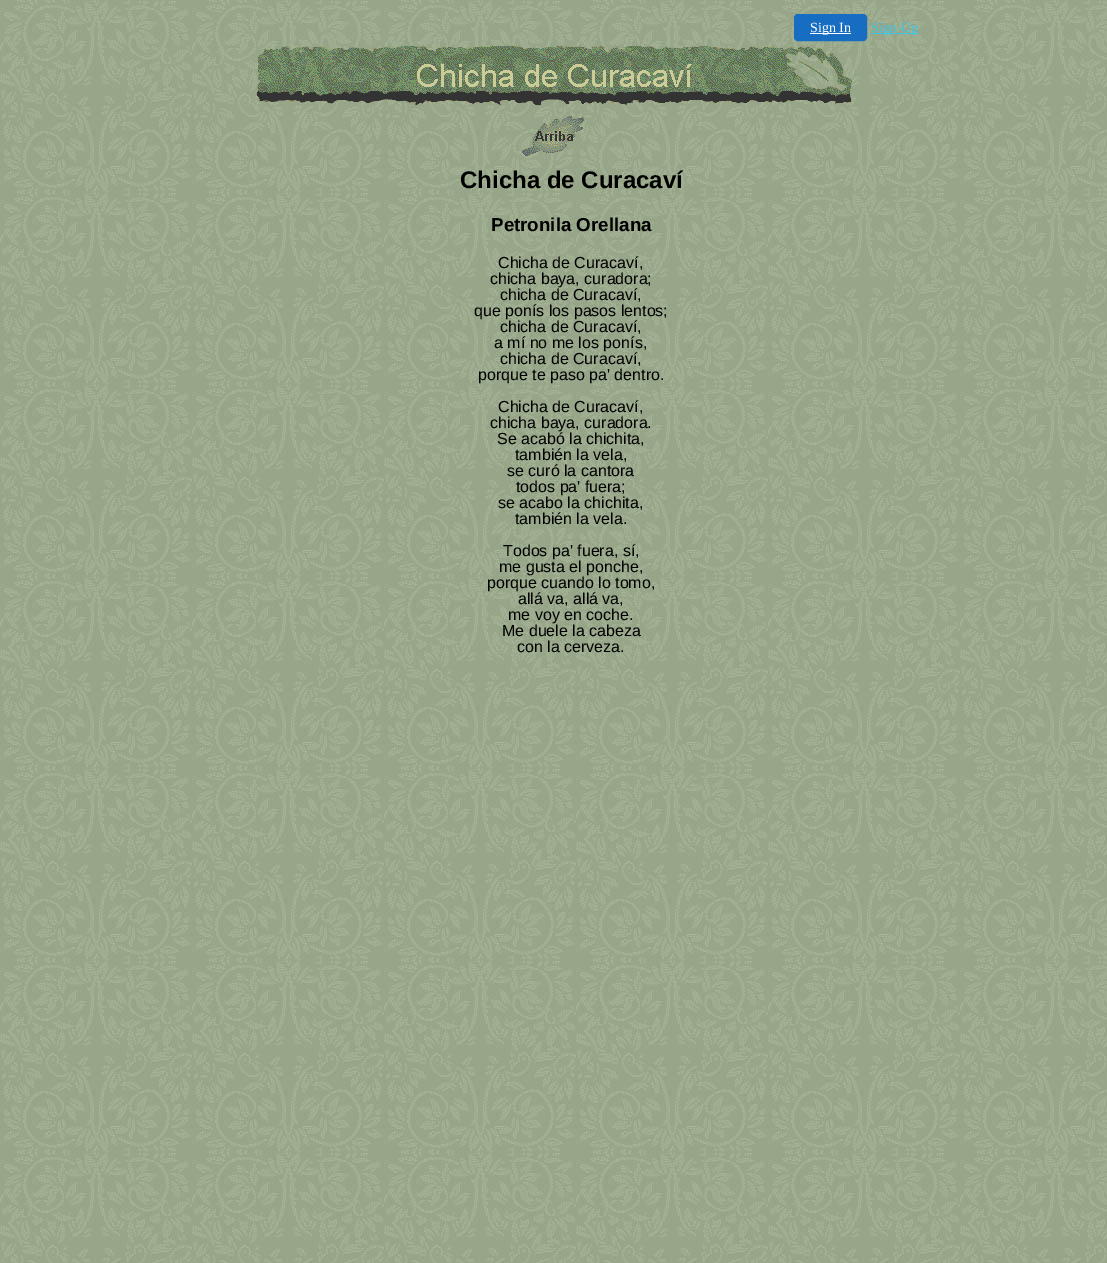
%!PS
<< /PageSize [1107 1263] >> setpagedevice
/roundrect { 5 dict begin { /r /h /w /y /x } { exch def } forall
  x r add y moveto x w add y 2 copy h add r arct x w add y h add x 1 index r arct
  x y h add x y r arct x y 2 copy exch w add exch r arct closepath end } def
/picture { 5 dict begin { /h /w /y /x /name } { exch def } forall
  gsave x y translate w h scale
  w h 8 [w 0 0 h 0 0] name (r) file false 3 colorimage grestore end } def
0 1263 translate 1 -1 scale
4 setmiterlimit
1 setgray
0 0 1107 1263 rectfill
(img1.rgb) 0 0 1107 1263 picture
0.086 0.427 0.761 setrgbcolor
794.5 14.5 72 26 3.5 roundrect gsave fill grestore
stroke
1 setgray
810 33 41 1 rectfill
/LiberationSerif-Regular [14 0 0 -14 0 0] selectfont
810 32 moveto (Sign In) show
0.255 0.773 0.894 setrgbcolor
871 33 48 1 rectfill
871 32 moveto (Sign-Up) show
(img2.rgb) 256 46 596 60 picture
(img3.rgb) 522 116 62 40 picture
/LiberationSans-Bold [24 0 0 -24 0 0] selectfont
0 setgray
460 188 moveto (Chicha de Curacaví) show
/LiberationSans-Bold [18.75 0 0 -18.75 0 0] selectfont
491 231 moveto (Petronila Orellana) show
/LiberationSans-Regular [16 0 0 -16 0 0] selectfont
498 268 moveto (Chicha de Curacaví,) show
490 284 moveto (chicha baya, curadora;) show
500 300 moveto (chicha de Curacaví,) show
474 316 moveto (que ponís los pasos lentos;) show
500 332 moveto (chicha de Curacaví,) show
494 348 moveto (a mí no me los ponís,) show
500 364 moveto (chicha de Curacaví,) show
478 380 moveto (porque te paso pa' dentro.) show
498 412 moveto (Chicha de Curacaví,) show
490 428 moveto (chicha baya, curadora.) show
497 444 moveto (Se acabó la chichita,) show
515 460 moveto (también la vela,) show
507 476 moveto (se curó la cantora) show
516 492 moveto (todos pa' fuera;) show
498 508 moveto (se acabo la chichita,) show
515 524 moveto (también la vela.) show
503 556 moveto (Todos pa' fuera, sí,) show
499 572 moveto (me gusta el ponche,) show
487 588 moveto (porque cuando lo tomo,) show
518 604 moveto (allá va, allá va,) show
508 620 moveto (me voy en coche.) show
502 636 moveto (Me duele la cabeza) show
517 652 moveto (con la cerveza.) show
showpage
